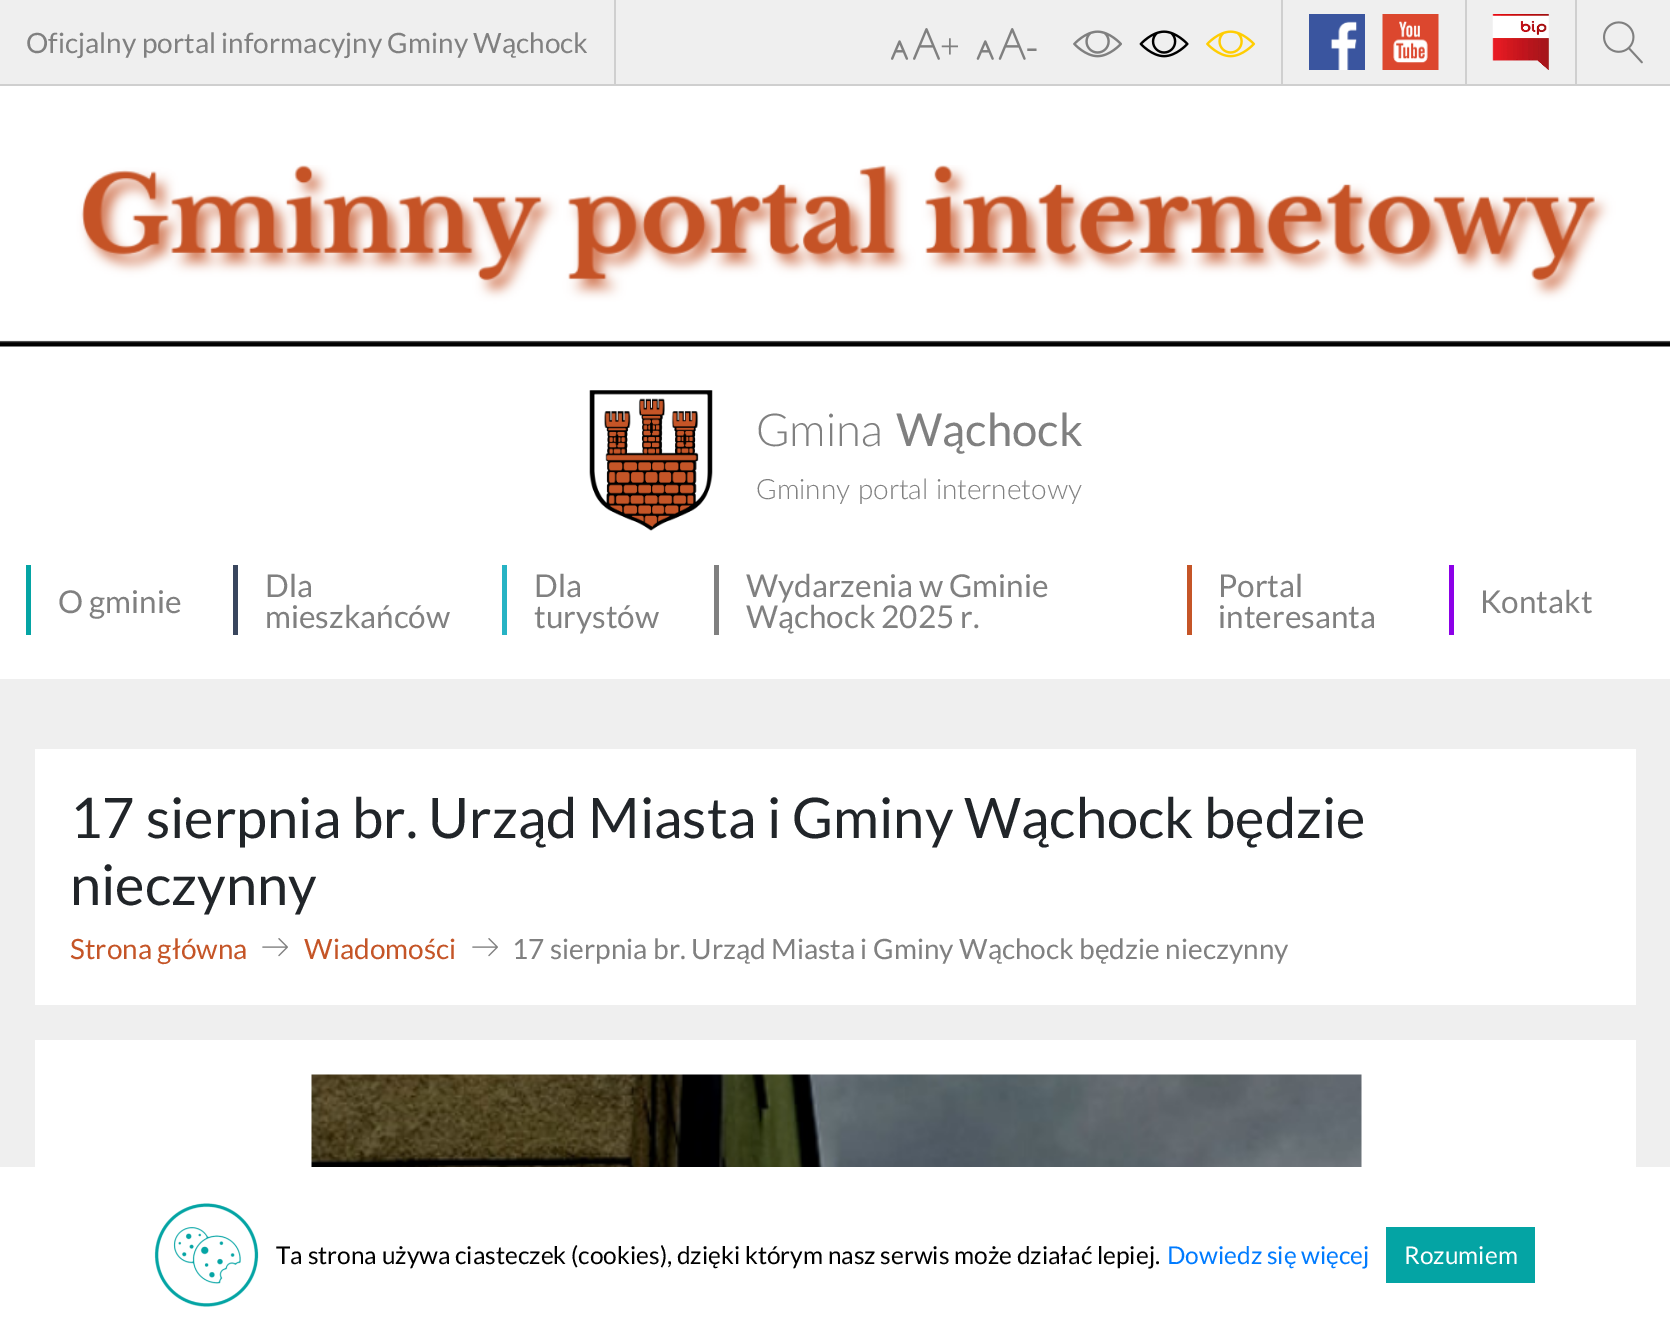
%!PS
<< /PageSize [1670 1341] >> setpagedevice
/picture { 5 dict begin { /h /w /y /x /name } { exch def } forall
  gsave x y translate w h scale
  w h 8 [w 0 0 h 0 0] name (r) file false 3 colorimage grestore end } def
0 1341 translate 1 -1 scale
4 setmiterlimit
1 setgray
0 0 1670 1341 rectfill
0.937 setgray
0 0 1670 84 rectfill
0.812 setgray
614 0 2 84 rectfill
/Lato-Regular [28 0 0 -28 0 0] selectfont
0.502 setgray
26 53 moveto (Oficjalny portal informacyjny Gminy Wąchock) show
0.812 setgray
1281 0 2 84 rectfill
(img1.rgb) 891 28 49 32 picture
/LiberationSerif-Regular [35 0 0 -35 0 0] selectfont
0.502 setgray
940 58 moveto (+) show
(img2.rgb) 976 28 50 32 picture
1026 58 moveto (-) show
(img3.rgb) 1073 30 49 28 picture
(img4.rgb) 1139 30 50 28 picture
(img5.rgb) 1206 30 50 28 picture
0.812 setgray
1575 0 2 84 rectfill
(img6.rgb) 1309 14 56 56 picture
(img7.rgb) 1382 14 57 56 picture
1465 0 2 84 rectfill
(img8.rgb) 1492 14 57 56 picture
(img9.rgb) 1603 21 40 43 picture
(img10.rgb) 0 165 1670 182 picture
0 84 1670 2 rectfill
(img11.rgb) 589 390 124 141 picture
/Lato-Light [45.5 0 0 -45.5 0 0] selectfont
0.502 setgray
756 446 moveto (Gmina) show
/Lato-Regular [45.5 0 0 -45.5 0 0] selectfont
896 446 moveto (Wąchock) show
/Lato-Light [28 0 0 -28 0 0] selectfont
756 499 moveto (Gminny portal internetowy) show
0.016 0.643 0.643 setrgbcolor
26 565 5 70 rectfill
/Lato-Regular [31.5 0 0 -31.5 0 0] selectfont
0.502 setgray
58 613 moveto (O gminie) show
0.224 0.275 0.369 setrgbcolor
233 565 5 70 rectfill
0.502 setgray
265 597 moveto (Dla) show
265 628 moveto (mieszkańców) show
0.153 0.702 0.769 setrgbcolor
502 565 5 70 rectfill
0.502 setgray
534 597 moveto (Dla) show
534 628 moveto (turystów) show
714 565 5 70 rectfill
746 597 moveto (Wydarzenia w Gminie) show
746 628 moveto (Wąchock 2025 r.) show
0.773 0.333 0.153 setrgbcolor
1187 565 5 70 rectfill
0.502 setgray
1218 597 moveto (Portal) show
1218 628 moveto (interesanta) show
0.549 0 0.91 setrgbcolor
1449 565 5 70 rectfill
0.502 setgray
1480 613 moveto (Kontakt) show
0.937 setgray
0 679 1670 488 rectfill
1 setgray
35 749 1601 256 rectfill
/Lato-Regular [56 0 0 -56 0 0] selectfont
0.129 0.145 0.161 setrgbcolor
70 838 moveto (17 sierpnia br. Urząd Miasta i Gminy Wąchock będzie) show
70 905 moveto (nieczynny) show
/Lato-Regular [28 0 0 -28 0 0] selectfont
0.773 0.333 0.153 setrgbcolor
70 959 moveto (Strona główna) show
(img12.rgb) 262 938 26 19 picture
304 959 moveto (Wiadomości) show
(img12.rgb) 472 938 26 19 picture
0.502 setgray
512 959 moveto (17 sierpnia br. Urząd Miasta i Gminy Wąchock będzie nieczynny) show
1 setgray
35 1040 1601 127 rectfill
(img13.rgb) 311 1074 1051 93 picture
(img14.rgb) 154 1203 105 104 picture
/Lato-Regular [24.5 0 0 -24.5 0 0] selectfont
0 setgray
276 1264 moveto (Ta strona używa ciasteczek \(cookies\), dzięki którym nasz serwis może działać lepiej.) show
0 0.482 1 setrgbcolor
1167 1264 moveto (Dowiedz się więcej) show
0.016 0.643 0.643 setrgbcolor
1386 1227 149 56 rectfill
1 setgray
1404 1264 moveto (Rozumiem) show
showpage
